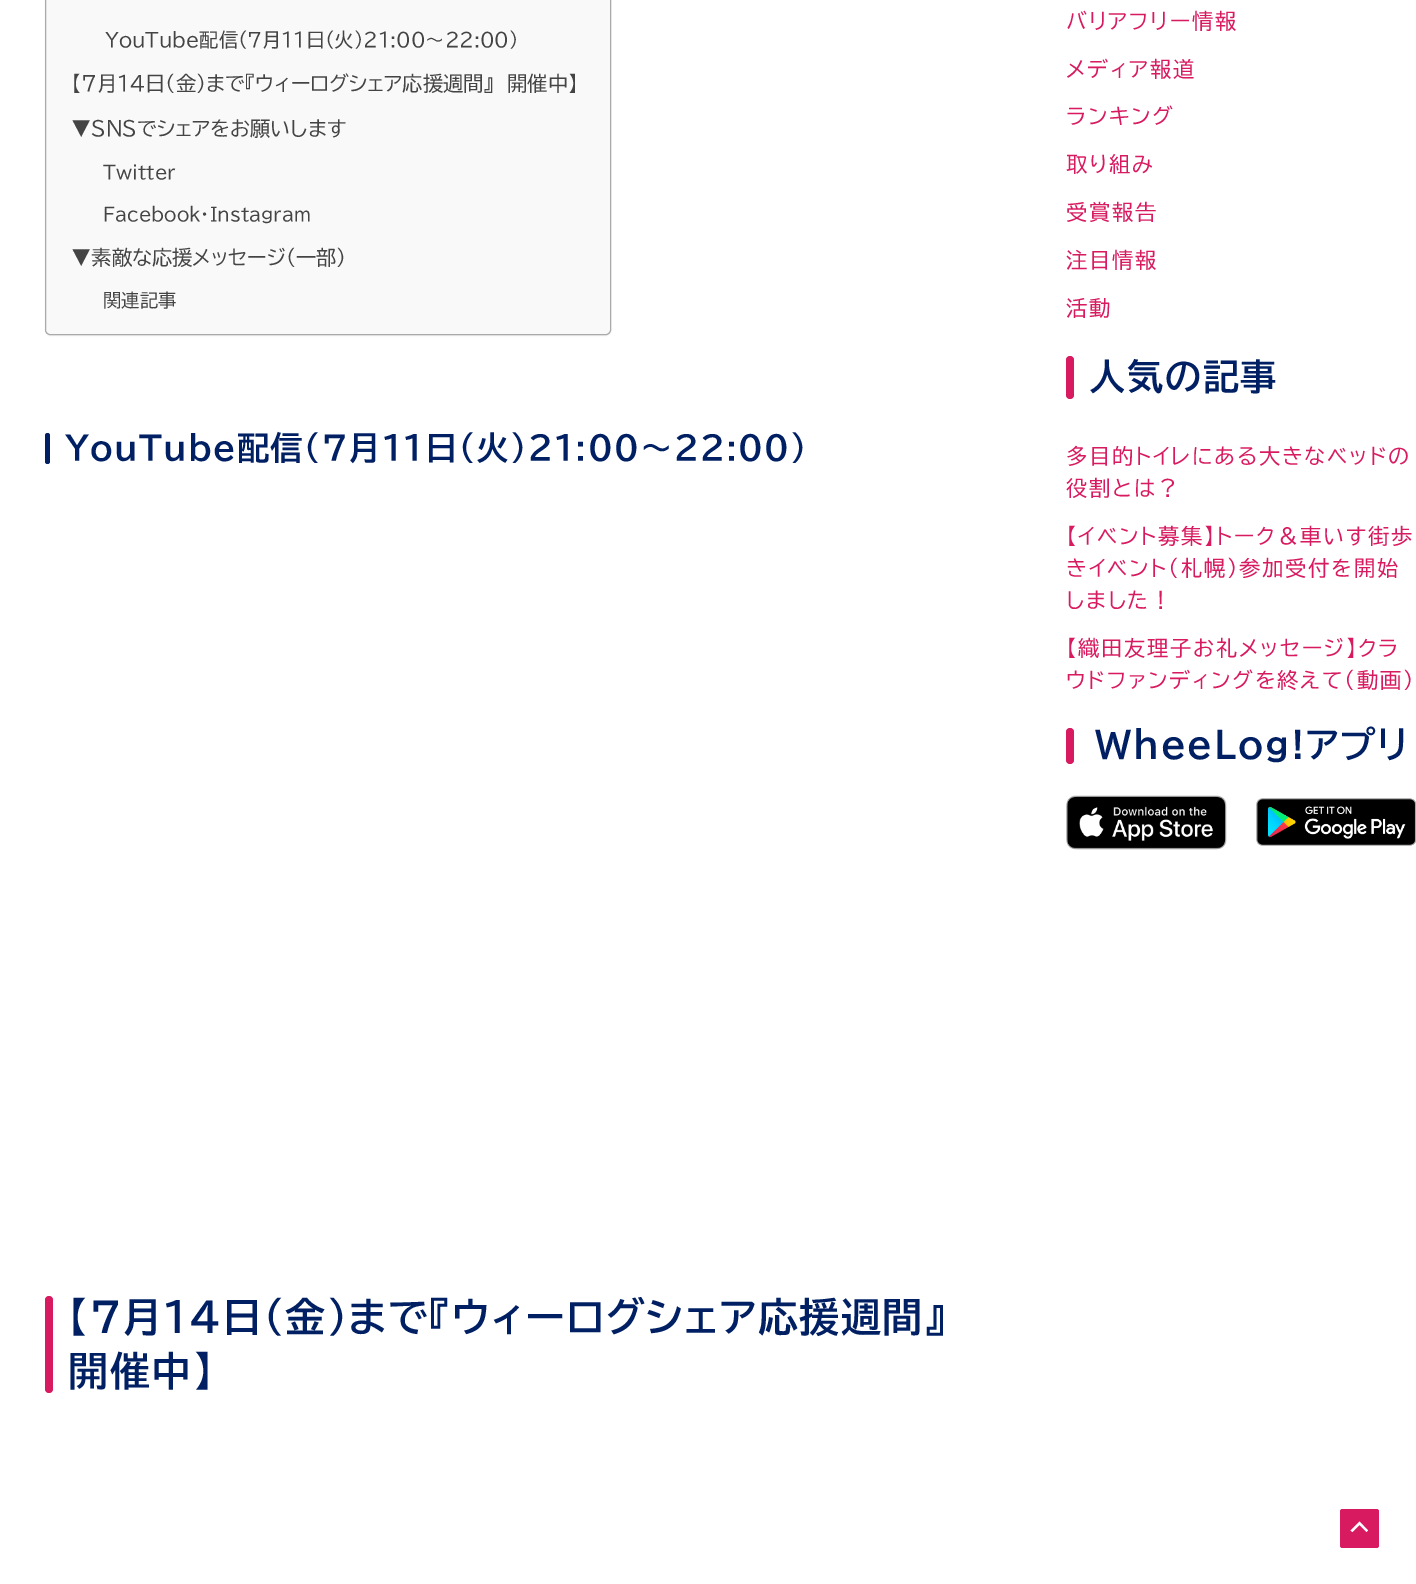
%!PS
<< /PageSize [1416 1584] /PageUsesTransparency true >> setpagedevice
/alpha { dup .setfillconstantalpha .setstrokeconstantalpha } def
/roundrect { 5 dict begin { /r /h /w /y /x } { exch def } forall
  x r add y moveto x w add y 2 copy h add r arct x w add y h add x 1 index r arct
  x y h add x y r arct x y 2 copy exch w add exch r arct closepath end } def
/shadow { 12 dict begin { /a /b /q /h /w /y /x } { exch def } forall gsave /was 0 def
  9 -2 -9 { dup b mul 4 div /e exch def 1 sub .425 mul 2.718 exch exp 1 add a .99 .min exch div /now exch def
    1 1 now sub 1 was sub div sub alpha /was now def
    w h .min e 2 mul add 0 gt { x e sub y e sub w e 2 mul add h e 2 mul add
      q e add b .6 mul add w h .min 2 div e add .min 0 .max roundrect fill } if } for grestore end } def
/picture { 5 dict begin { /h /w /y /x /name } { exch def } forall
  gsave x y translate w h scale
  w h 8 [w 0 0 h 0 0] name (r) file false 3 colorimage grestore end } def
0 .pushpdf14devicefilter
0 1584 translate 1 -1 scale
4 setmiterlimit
1 setgray
0 0 1416 1584 rectfill
0 setgray
45 -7 566 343 5 0.5 0.05 shadow
0.976 setgray
45.5 -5.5 565 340 4.5 roundrect gsave fill grestore
0.667 setgray
stroke
/BIZUDPGothic-Regular [19.25 0 0 -19.25 0 0] selectfont
0.267 setgray
105 47 moveto (YouTube配信（7月11日（火）21:00〜22:00）) show
/BIZUDPGothic-Regular [20.3 0 0 -20.3 0 0] selectfont
71 91 moveto (【7月14日（金）まで『ウィーログシェア応援週間』　開催中】) show
71 136 moveto (▼SNSでシェアをお願いします) show
/BIZUDPGothic-Regular [18.25 0 0 -18.25 0 0] selectfont
103 179 moveto (Twitter) show
103 221 moveto (Facebook・Instagram) show
/BIZUDPGothic-Regular [20.3 0 0 -20.3 0 0] selectfont
71 265 moveto (▼素敵な応援メッセージ\(一部\)) show
/BIZUDPGothic-Regular [18.25 0 0 -18.25 0 0] selectfont
103 307 moveto (関連記事) show
0 0.125 0.388 setrgbcolor
45 433 5 31 2.5 roundrect fill
/BIZUDPGothic-Bold [32.5 0 0 -32.5 0 0] selectfont
65 460 moveto 1.3 0 (YouTube配信（7月11日（火）21:00〜22:00）) ashow
0.847 0.106 0.376 setrgbcolor
45 1296 8 97 4 roundrect fill
/BIZUDPGothic-Bold [40 0 0 -40 0 0] selectfont
0 0.125 0.388 setrgbcolor
68 1332 moveto 1.6 0 (【7月14日（金）まで『ウィーログシェア応援週間』) ashow
68 1386 moveto 1.6 0 (開催中】) ashow
/BIZUDPGothic-Regular [21.25 0 0 -21.25 0 0] selectfont
0.847 0.106 0.376 setrgbcolor
1066 29 moveto 1.75 0 (バリアフリー情報) ashow
1066 77 moveto 1.75 0 (メディア報道) ashow
1066 124 moveto 1.75 0 (ランキング) ashow
1066 172 moveto 1.75 0 (取り組み) ashow
1066 220 moveto 1.75 0 (受賞報告) ashow
1066 268 moveto 1.75 0 (注目情報) ashow
1066 316 moveto 1.75 0 (活動) ashow
1066 356 8 43 4 roundrect fill
/BIZUDPGothic-Bold [36.1 0 0 -36.1 0 0] selectfont
0 0.125 0.388 setrgbcolor
1089 390 moveto 1.75 0 (人気の記事) ashow
/BIZUDPGothic-Regular [21.25 0 0 -21.25 0 0] selectfont
0.847 0.106 0.376 setrgbcolor
1066 464 moveto 1.75 0 (多目的トイレにある大きなベッドの) ashow
1066 496 moveto 1.75 0 (役割とは？) ashow
1066 544 moveto 1.75 0 (【イベント募集】トーク＆車いす街歩) ashow
1066 576 moveto 1.75 0 (きイベント（札幌）参加受付を開始) ashow
1066 608 moveto 1.75 0 (しました！) ashow
1066 656 moveto 1.75 0 (【織田友理子お礼メッセージ】クラ) ashow
1066 688 moveto 1.75 0 (ウドファンディングを終えて（動画）) ashow
1066 728 8 36 4 roundrect fill
/BIZUDPGothic-Bold [36.1 0 0 -36.1 0 0] selectfont
0 0.125 0.388 setrgbcolor
1095 758 moveto 1.75 0 (WheeLog!アプリ) ashow
(img1.rgb) 1066 795 161 55 picture
(img2.rgb) 1256 798 160 48 picture
0.847 0.106 0.376 setrgbcolor
1340 1509 39 39 2.5 roundrect fill
1 setgray
newpath 1368 1530.5 moveto 1359.5 1521.5 lineto 1350.5 1530.5 lineto 1352.5 1532 lineto 1359.5 1525 lineto 1366.5 1532 lineto closepath fill
.poppdf14devicefilter showpage
